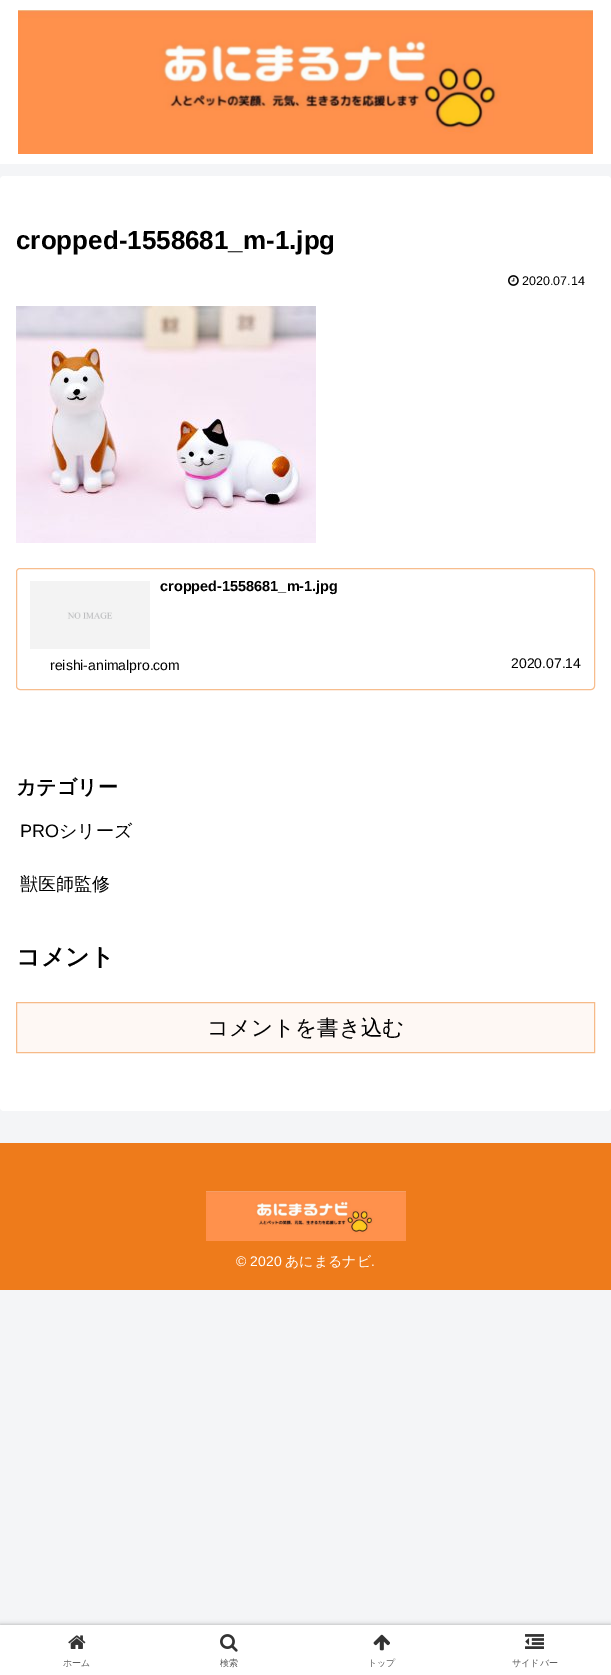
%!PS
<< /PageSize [611 1675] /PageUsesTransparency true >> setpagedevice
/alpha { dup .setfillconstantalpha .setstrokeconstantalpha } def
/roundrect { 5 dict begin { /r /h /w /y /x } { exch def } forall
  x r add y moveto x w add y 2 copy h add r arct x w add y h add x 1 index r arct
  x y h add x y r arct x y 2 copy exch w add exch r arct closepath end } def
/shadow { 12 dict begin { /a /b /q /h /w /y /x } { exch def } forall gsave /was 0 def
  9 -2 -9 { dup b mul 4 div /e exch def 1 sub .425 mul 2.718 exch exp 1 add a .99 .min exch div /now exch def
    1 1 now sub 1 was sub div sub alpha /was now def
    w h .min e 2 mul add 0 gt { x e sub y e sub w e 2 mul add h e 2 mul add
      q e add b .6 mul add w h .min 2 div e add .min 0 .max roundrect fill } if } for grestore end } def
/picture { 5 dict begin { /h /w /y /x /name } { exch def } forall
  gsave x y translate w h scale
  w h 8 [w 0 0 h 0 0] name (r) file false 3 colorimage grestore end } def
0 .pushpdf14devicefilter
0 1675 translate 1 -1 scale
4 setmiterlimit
0.957 0.961 0.969 setrgbcolor
0 0 611 1675 rectfill
1 setgray
0 0 611 164 rectfill
(img1.rgb) 18 10 575 144 picture
0 176 611 935 4 roundrect fill
/LiberationSans-Bold [26 0 0 -26 0 0] selectfont
0 setgray
16 249 moveto (cropped-1558681_m-1.jpg) show
(img2.rgb) 508 275 11 11 picture
/LiberationSans-Regular [12.5 0 0 -12.5 0 0] selectfont
522 285 moveto (2020.07.14) show
(img3.rgb) 16 306 300 237 picture
0.969 0.741 0.553 setrgbcolor
16.5 568.5 578 121 3.5 roundrect stroke
(img4.rgb) 30 581 120 68 picture
/LiberationSans-Bold [14.5 0 0 -14.5 0 0] selectfont
0 setgray
160 591 moveto (cropped-1558681_m-1.jpg) show
/LiberationSans-Regular [14 0 0 -14 0 0] selectfont
50 670 moveto (reishi-animalpro.com) show
511 668 moveto (2020.07.14) show
/WenQuanYiZenHei-Bold [20 0 0 -20 0 0] selectfont
16 794 moveto (カテゴリー) show
/LiberationSans-Regular [18 0 0 -18 0 0] selectfont
20 837 moveto (PRO) show
/WenQuanYiZenHei-Medium [18 0 0 -18 0 0] selectfont
59 837 moveto (シリーズ) show
20 890 moveto (獣医師監修) show
/WenQuanYiZenHei-Bold [24 0 0 -24 0 0] selectfont
16 965 moveto (コメント) show
0.996 0.973 0.957 setrgbcolor
newpath 16.5 1002.5 moveto 594.5 1002.5 lineto 594.5 1052.5 lineto 16.5 1052.5 lineto closepath gsave fill grestore
0.965 0.729 0.533 setrgbcolor
stroke
/WenQuanYiZenHei-Medium [21.5 0 0 -21.5 0 0] selectfont
0 setgray
207 1035 moveto (コメントを書き込む) show
0.933 0.482 0.106 setrgbcolor
0 1143 611 147 rectfill
(img5.rgb) 206 1191 200 50 picture
/LiberationSans-Regular [14 0 0 -14 0 0] selectfont
1 setgray
236 1266 moveto (© 2020) show
/WenQuanYiZenHei-Medium [14 0 0 -14 0 0] selectfont
285 1266 moveto (あにまるナビ) show
/LiberationSans-Regular [14 0 0 -14 0 0] selectfont
371 1266 moveto (.) show
0.663 setgray
0 1625 611 50 0 2.5 1 shadow
1 setgray
0 1625 611 50 rectfill
(img6.rgb) 68 1635 18 14 picture
/WenQuanYiZenHei-Medium [9 0 0 -9 0 0] selectfont
0.361 setgray
63 1666 moveto (ホーム) show
(img7.rgb) 220 1634 18 18 picture
220 1666 moveto (検索) show
(img8.rgb) 373 1634 17 17 picture
368 1666 moveto (トップ) show
(img9.rgb) 525 1634 19 15 picture
512 1666 moveto (サイドバー) show
.poppdf14devicefilter showpage
